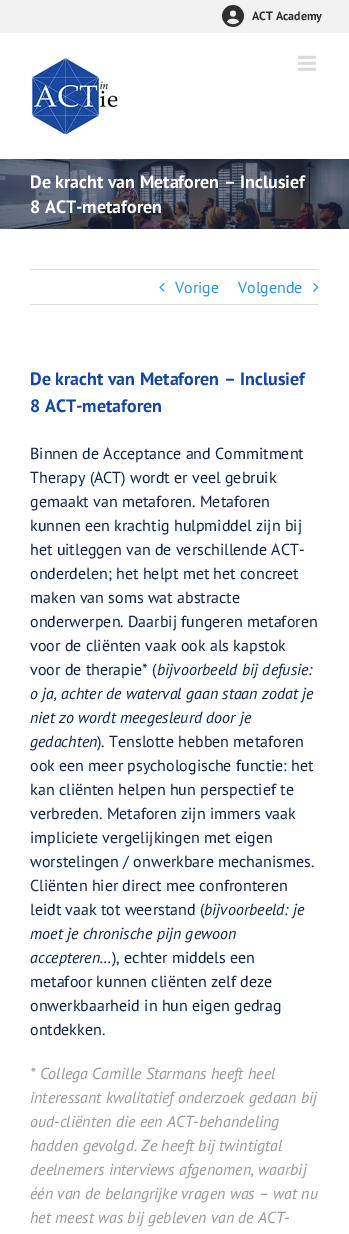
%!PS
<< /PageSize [349 1234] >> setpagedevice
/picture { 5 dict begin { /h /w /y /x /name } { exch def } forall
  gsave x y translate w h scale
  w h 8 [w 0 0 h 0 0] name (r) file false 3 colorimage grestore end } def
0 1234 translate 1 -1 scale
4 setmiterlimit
1 setgray
0 0 349 1234 rectfill
0.949 setgray
0 0 349 33 rectfill
(img1.rgb) 222 5 22 22 picture
/PTSans-Bold [12 0 0 -12 0 0] selectfont
0.188 setgray
252 20 moveto (ACT Academy) show
(img2.rgb) 30 57 88 79 picture
(img3.rgb) 298 55 18 16 picture
(img4.rgb) 0 159 349 70 picture
/PTSans-Bold [18 0 0 -18 0 0] selectfont
1 setgray
30 188 moveto (De kracht van Metaforen – Inclusief) show
30 213 moveto (8 ACT-metaforen) show
0.878 0.871 0.871 setrgbcolor
30 269 289 1 rectfill
30 304 289 1 rectfill
(img5.rgb) 159 283 6 9 picture
/PTSans-Regular [16 0 0 -16 0 0] selectfont
0.188 0.576 0.871 setrgbcolor
175 293 moveto (Vorige) show
238 293 moveto (Volgende) show
(img6.rgb) 313 283 6 9 picture
/PTSans-Bold [18 0 0 -18 0 0] selectfont
0.094 0.278 0.624 setrgbcolor
30 385 moveto (De kracht van Metaforen – Inclusief) show
30 412 moveto (8 ACT-metaforen) show
/PTSans-Regular [16 0 0 -16 0 0] selectfont
0.067 0.141 0.294 setrgbcolor
30 459 moveto (Binnen de Acceptance and Commitment) show
30 483 moveto (Therapy \(ACT\) wordt er veel gebruik) show
30 507 moveto (gemaakt van metaforen. Metaforen) show
30 531 moveto (kunnen een krachtig hulpmiddel zijn bij) show
30 555 moveto (het uitleggen van de verschillende ACT-) show
30 579 moveto (onderdelen; het helpt met het concreet) show
30 603 moveto (maken van soms wat abstracte) show
30 627 moveto (onderwerpen. Daarbij fungeren metaforen) show
30 651 moveto (voor de cliënten vaak ook als kapstok) show
30 675 moveto (voor de therapie* \() show
/PTSans-Italic [16 0 0 -16 0 0] selectfont
157 675 moveto (bijvoorbeeld bij defusie:) show
30 699 moveto (o ja, achter de waterval gaan staan zodat je) show
30 723 moveto (niet zo wordt meegesleurd door je) show
30 747 moveto (gedachten) show
/PTSans-Regular [16 0 0 -16 0 0] selectfont
97 747 moveto (\). Tenslotte hebben metaforen) show
30 771 moveto (ook een meer psychologische functie: het) show
30 795 moveto (kan cliënten helpen hun perspectief te) show
30 819 moveto (verbreden. Metaforen zijn immers vaak) show
30 843 moveto (impliciete vergelijkingen met eigen) show
30 867 moveto (worstelingen / onwerkbare mechanismes.) show
30 891 moveto (Cliënten hier direct mee confronteren) show
30 915 moveto (leidt vaak tot weerstand \() show
/PTSans-Italic [16 0 0 -16 0 0] selectfont
204 915 moveto (bijvoorbeeld: je) show
30 939 moveto (moet je chronische pijn gewoon) show
30 963 moveto (accepteren…) show
/PTSans-Regular [16 0 0 -16 0 0] selectfont
112 963 moveto (\), echter middels een) show
30 987 moveto (metafoor kunnen cliënten zelf deze) show
30 1011 moveto (onwerkbaarheid in hun eigen gedrag) show
30 1035 moveto (ontdekken.) show
/PTSans-Italic [16 0 0 -16 0 0] selectfont
0.6 setgray
30 1079 moveto (* Collega Camille Starmans heeft heel) show
30 1103 moveto (interessant kwalitatief onderzoek gedaan bij) show
30 1127 moveto (oud-cliënten die een ACT-behandeling) show
30 1151 moveto (hadden gevolgd. Ze heeft bij twintigtal) show
30 1175 moveto (deelnemers interviews afgenomen, waarbij) show
30 1199 moveto (één van de belangrijke vragen was – wat nu) show
30 1223 moveto (het meest was bij gebleven van de ACT-) show
showpage
